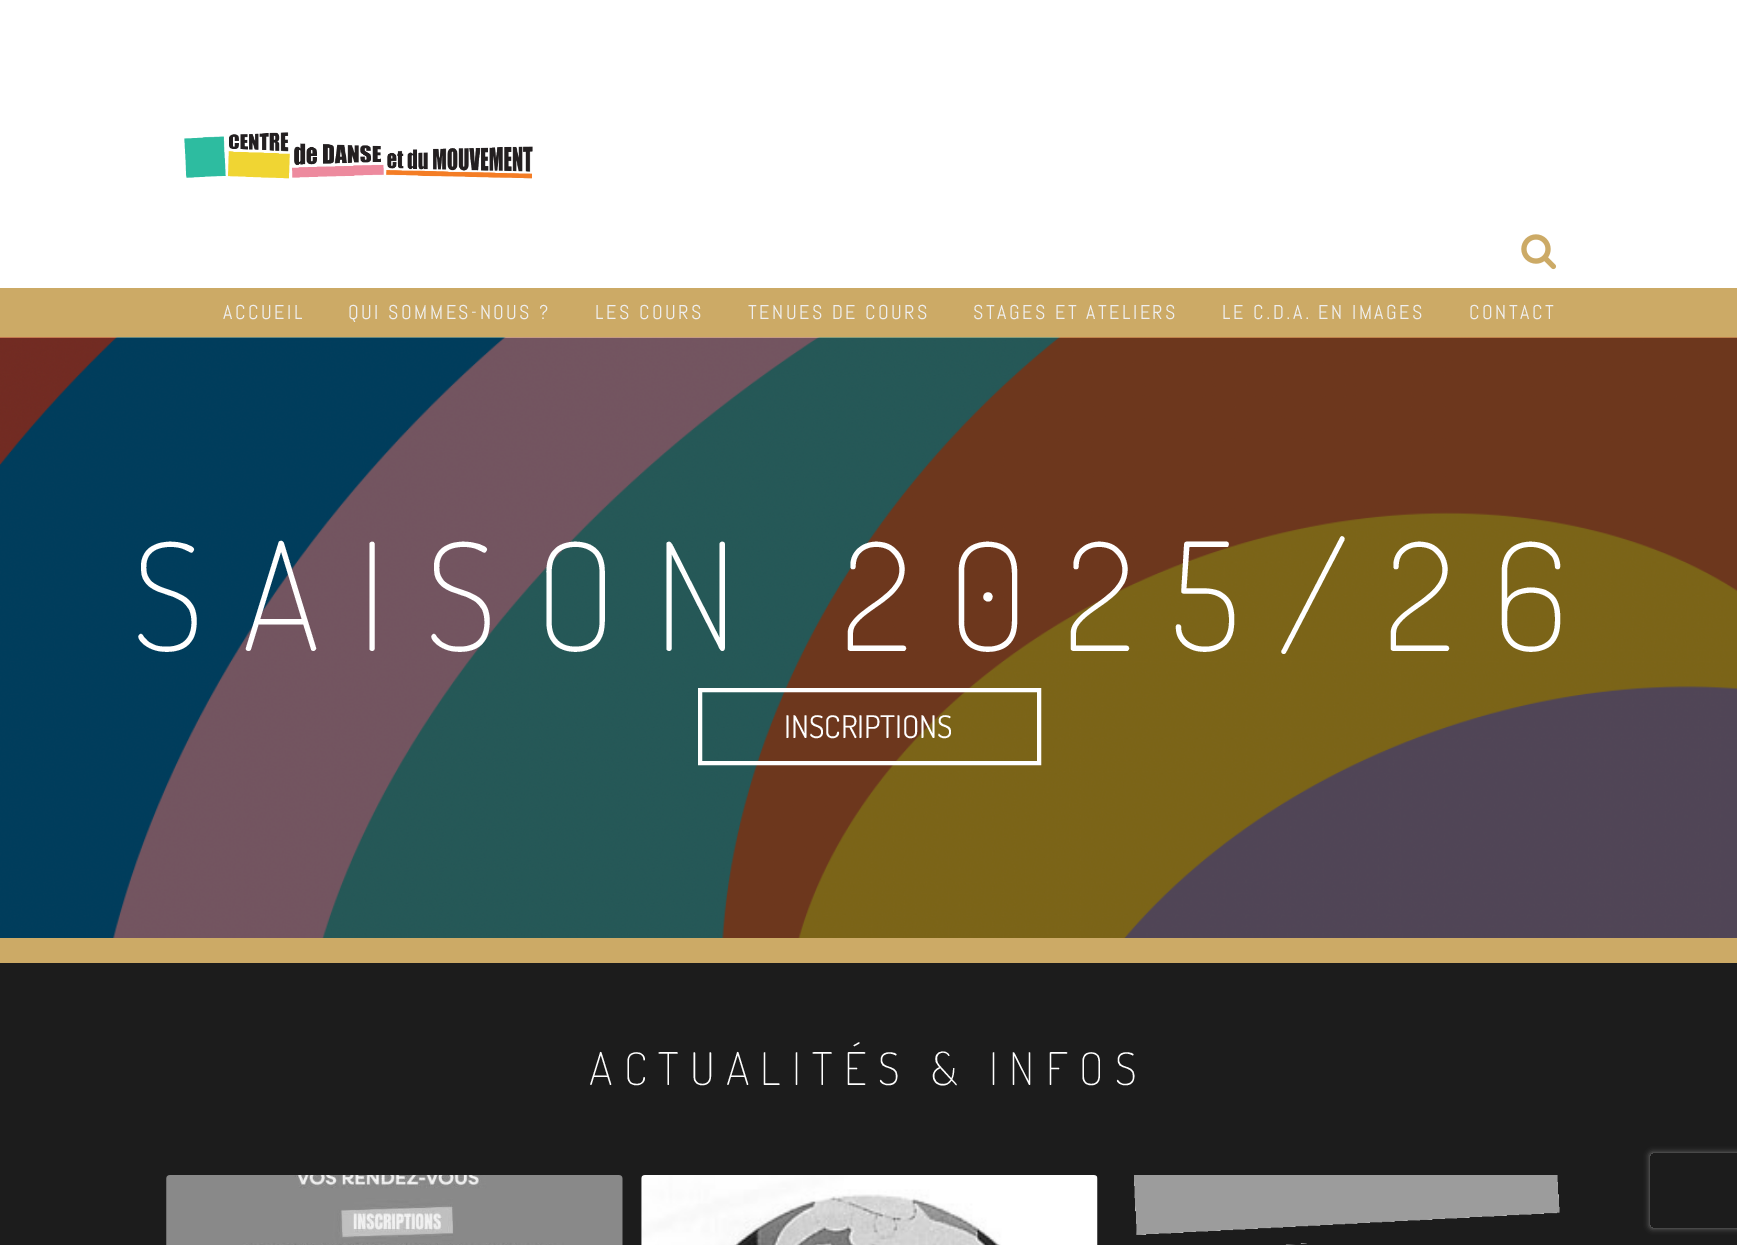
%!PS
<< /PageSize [1737 1245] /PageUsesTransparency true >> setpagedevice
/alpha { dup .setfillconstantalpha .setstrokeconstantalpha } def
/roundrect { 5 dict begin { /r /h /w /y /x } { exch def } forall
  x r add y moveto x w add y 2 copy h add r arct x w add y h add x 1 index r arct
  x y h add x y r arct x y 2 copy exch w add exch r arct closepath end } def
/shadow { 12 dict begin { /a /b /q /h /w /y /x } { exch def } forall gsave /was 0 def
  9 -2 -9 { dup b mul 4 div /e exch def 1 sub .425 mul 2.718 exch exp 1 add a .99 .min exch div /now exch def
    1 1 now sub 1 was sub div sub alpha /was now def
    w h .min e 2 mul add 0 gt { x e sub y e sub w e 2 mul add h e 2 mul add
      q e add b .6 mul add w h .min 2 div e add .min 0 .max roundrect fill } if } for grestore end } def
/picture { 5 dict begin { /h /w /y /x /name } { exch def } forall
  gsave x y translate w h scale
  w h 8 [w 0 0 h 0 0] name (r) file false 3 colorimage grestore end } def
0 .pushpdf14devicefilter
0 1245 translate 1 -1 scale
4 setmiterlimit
1 setgray
0 0 1737 1245 rectfill
(img1.rgb) 184 132 349 47 picture
(img2.rgb) 1521 234 36 36 picture
0.8 0.667 0.4 setrgbcolor
0 288 1737 50 rectfill
/Abel-Regular [20 0 0 -20 0 0] selectfont
0.937 setgray
223 319 moveto 2.5 0 (ACCUEIL) ashow
348 319 moveto 2.5 0 (QUI SOMMES-NOUS ?) ashow
595 319 moveto 2.5 0 (LES COURS) ashow
748 319 moveto 2.5 0 (TENUES DE COURS) ashow
973 319 moveto 2.5 0 (STAGES ET ATELIERS) ashow
1222 319 moveto 2.5 0 (LE C.D.A. EN IMAGES) ashow
1469 319 moveto 2.5 0 (CONTACT) ashow
(img3.rgb) 0 337 1737 601 picture
0.8 0.667 0.4 setrgbcolor
0 938 1737 25 rectfill
/Dosis-ExtraLight [150 0 0 -150 0 0] selectfont
1 setgray
132 651 moveto 37.5 0 (SAISON 2025/26) ashow
4 setlinewidth
700 690 339 73 rectstroke
/Dosis-Regular [31.25 0 0 -31.25 0 0] selectfont
784 738 moveto (INSCRIPTIONS) show
0.11 setgray
0 963 1737 282 rectfill
/Dosis-ExtraLight [45 0 0 -45 0 0] selectfont
1 setgray
589 1085 moveto 11.25 0 (ACTUALITÉS & INFOS) ashow
(img4.rgb) 166 1175 457 70 picture
(img5.rgb) 641 1175 457 70 picture
(img6.rgb) 1134 1175 426 70 picture
gsave
newpath 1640 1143 moveto 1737 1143 lineto 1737 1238 lineto 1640 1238 lineto closepath 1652.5 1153 moveto 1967.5 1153 lineto 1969 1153 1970 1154 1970 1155.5 curveto 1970 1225.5 lineto 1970 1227 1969 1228 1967.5 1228 curveto 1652.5 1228 lineto 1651 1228 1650 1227 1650 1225.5 curveto 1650 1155.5 lineto 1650 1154 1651 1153 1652.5 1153 curveto closepath eoclip newpath
0.502 setgray
1650 1153 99 75 2.5 3 1 shadow
grestore
.poppdf14devicefilter showpage
